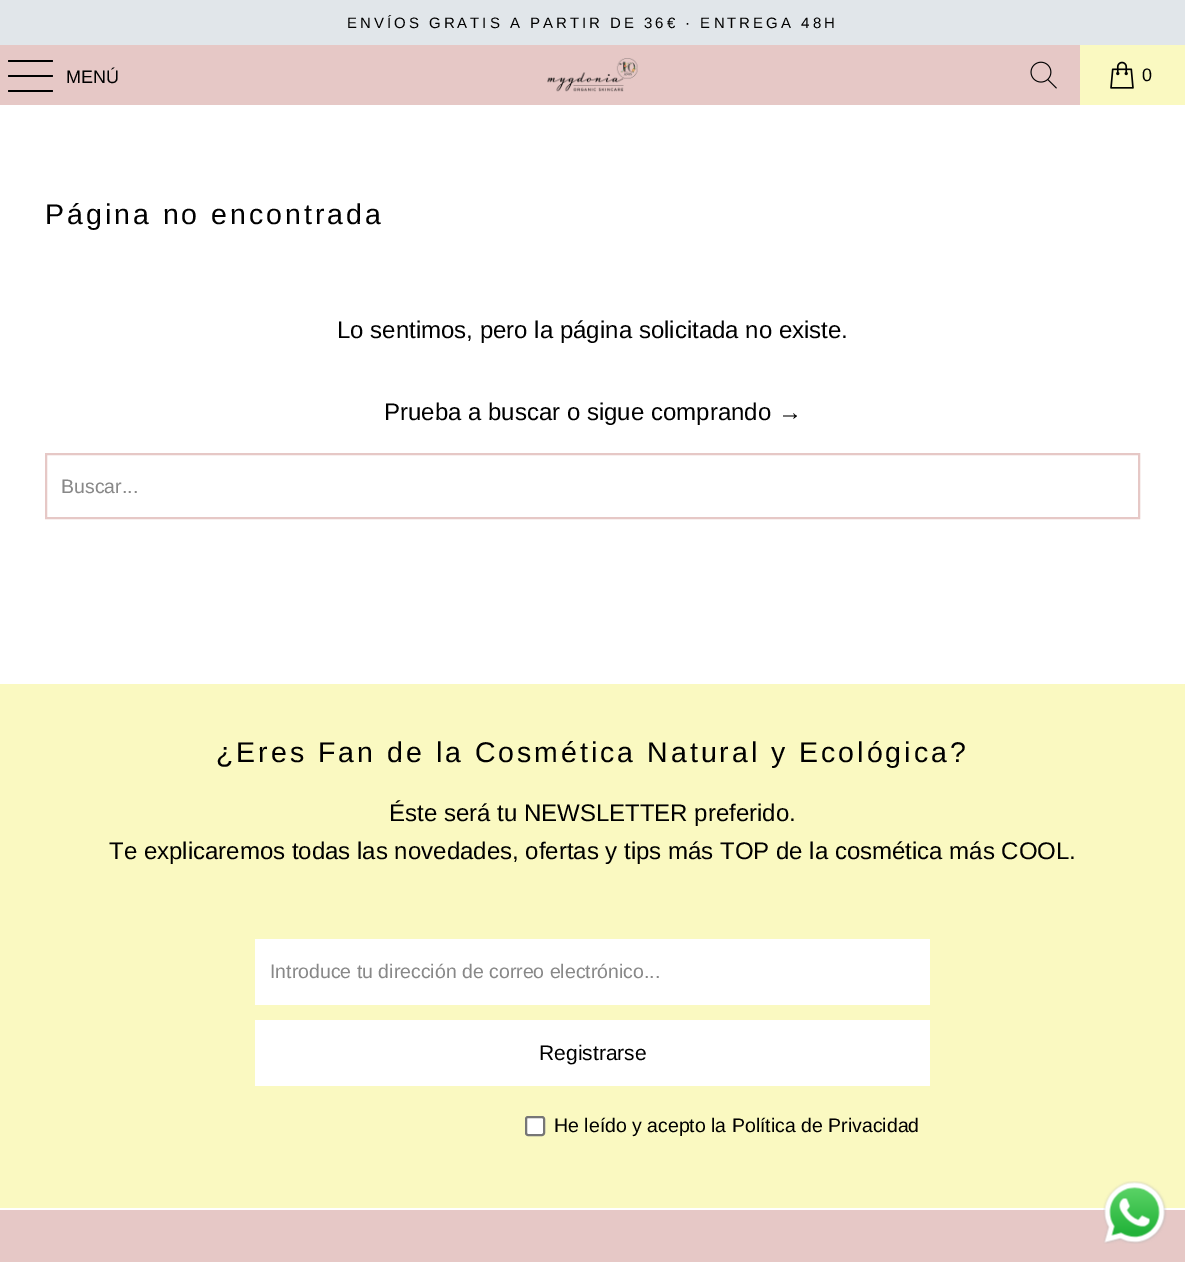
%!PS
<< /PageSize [1185 1262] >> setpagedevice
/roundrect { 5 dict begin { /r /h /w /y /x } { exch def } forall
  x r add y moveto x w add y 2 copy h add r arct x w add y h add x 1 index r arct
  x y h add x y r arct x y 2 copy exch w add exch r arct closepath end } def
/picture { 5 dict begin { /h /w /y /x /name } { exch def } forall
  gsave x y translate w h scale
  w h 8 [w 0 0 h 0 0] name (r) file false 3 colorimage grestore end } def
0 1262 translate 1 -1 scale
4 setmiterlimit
1 setgray
0 0 1185 1262 rectfill
0.882 0.902 0.918 setrgbcolor
0 0 1185 45 rectfill
/LiberationSans-Regular [15 0 0 -15 0 0] selectfont
0 setgray
347 28 moveto 3 0 (ENVÍOS GRATIS A PARTIR DE 36€ · ENTREGA 48H) ashow
0.902 0.784 0.776 setrgbcolor
0 45 1080 60 rectfill
0 setgray
8 60 45 2 1 roundrect fill
8 75 45 2 1 roundrect fill
8 90 45 2 1 roundrect fill
/LiberationSans-Regular [18 0 0 -18 0 0] selectfont
66 83 moveto (MENÚ) show
(img1.rgb) 547 58 91 34 picture
(img2.rgb) 1030 61 27 28 picture
0.98 0.976 0.757 setrgbcolor
1080 45 105 60 rectfill
(img3.rgb) 1110 61 24 28 picture
0 setgray
1142 81 moveto 2 0 (0) ashow
/LiberationSans-Regular [28.5 0 0 -28.5 0 0] selectfont
45 224 moveto 3 0 (Página no encontrada) ashow
/LiberationSans-Regular [24 0 0 -24 0 0] selectfont
337 338 moveto (Lo sentimos, pero la página solicitada no existe.) show
384 420 moveto (Prueba a buscar o sigue comprando →) show
0.902 0.784 0.776 setrgbcolor
2 setlinewidth
46 454 1093 64 rectstroke
/LiberationSans-Regular [19.5 0 0 -19.5 0 0] selectfont
0.533 setgray
61 493 moveto (Buscar...) show
0.98 0.976 0.757 setrgbcolor
0 684 1185 524 rectfill
/LiberationSans-Regular [28.5 0 0 -28.5 0 0] selectfont
0 setgray
216 762 moveto 3 0 (¿Eres Fan de la Cosmética Natural y Ecológica?) ashow
/LiberationSans-Regular [24 0 0 -24 0 0] selectfont
389 821 moveto (Éste será tu NEWSLETTER preferido.) show
109 859 moveto (Te explicaremos todas las novedades, ofertas y tips más TOP de la cosmética más COOL.) show
1 setgray
255 939 675 66 rectfill
/LiberationSans-Regular [19.5 0 0 -19.5 0 0] selectfont
0.533 setgray
270 978 moveto (Introduce tu dirección de correo electrónico...) show
1 setgray
255 1020 675 66 rectfill
/LiberationSans-Regular [21 0 0 -21 0 0] selectfont
0 setgray
539 1060 moveto (Registrarse) show
1 setgray
526 1117 18 18 2 roundrect gsave fill grestore
0.463 setgray
stroke
/LiberationSans-Regular [19.5 0 0 -19.5 0 0] selectfont
0 setgray
554 1132 moveto (He leído y acepto la Política de Privacidad) show
0.902 0.784 0.776 setrgbcolor
0 1210 1185 52 rectfill
(img4.rgb) 1103 1181 64 63 picture
showpage
